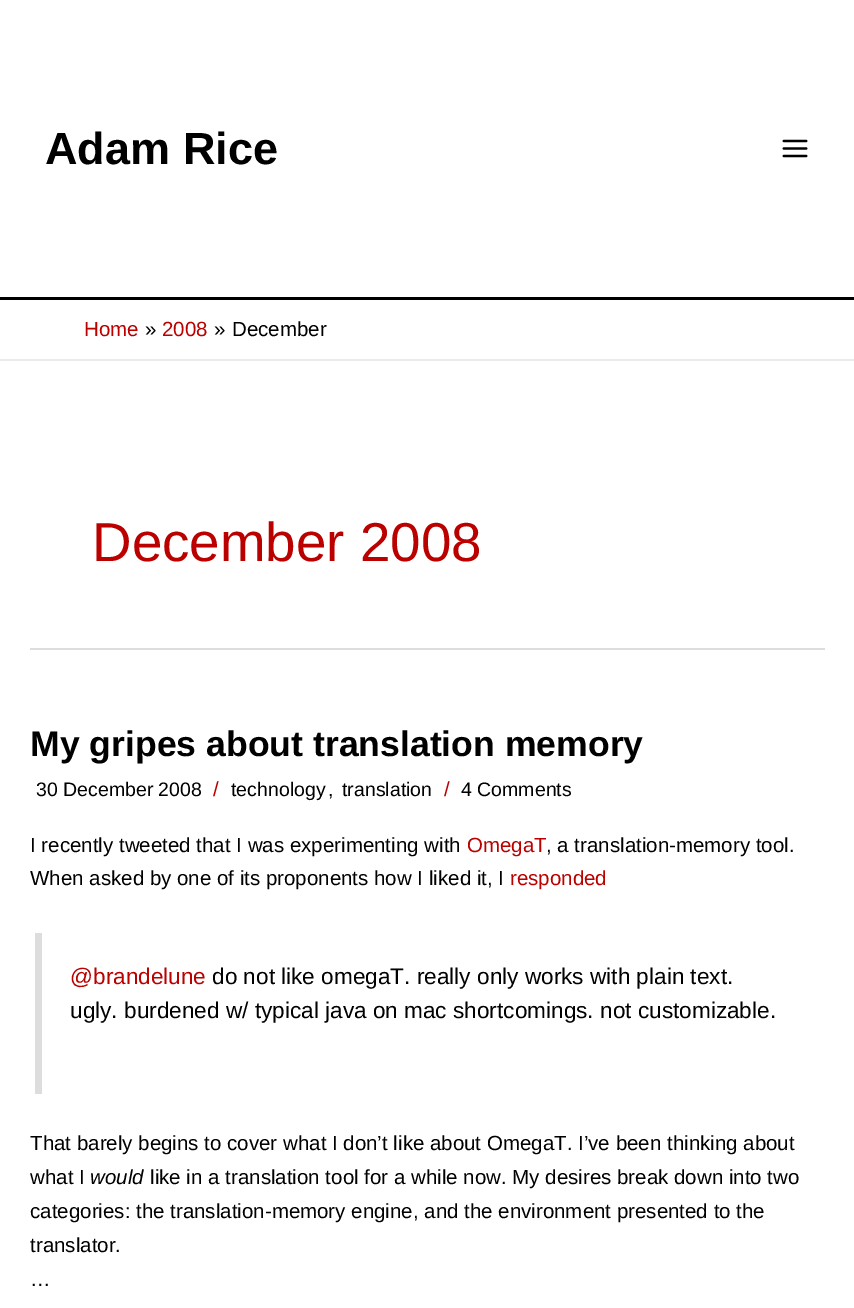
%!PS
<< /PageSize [854 1308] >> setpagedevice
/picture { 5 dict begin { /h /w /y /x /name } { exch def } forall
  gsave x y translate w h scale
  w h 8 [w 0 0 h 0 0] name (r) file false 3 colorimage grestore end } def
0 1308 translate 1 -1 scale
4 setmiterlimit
1 setgray
0 0 854 1308 rectfill
0 setgray
0 297 854 3 rectfill
/LiberationSans-Bold [45 0 0 -45 0 0] selectfont
45 164 moveto (Adam Rice) show
(img1.rgb) 782 139 26 19 picture
0.918 setgray
0 359 854 2 rectfill
/LiberationSans-Regular [20.5 0 0 -20.5 0 0] selectfont
0.733 0 0 setrgbcolor
84 336 moveto (Home) show
0 setgray
145 336 moveto (») show
0.733 0 0 setrgbcolor
162 336 moveto (2008) show
0 setgray
214 336 moveto (») show
232 336 moveto (December) show
0.867 setgray
30 648 795 2 rectfill
/LiberationSans-Regular [54.75 0 0 -54.75 0 0] selectfont
0.733 0 0 setrgbcolor
92 561 moveto (December 2008) show
/LiberationSans-Bold [35.6 0 0 -35.6 0 0] selectfont
0 setgray
30 756 moveto (My gripes about translation memory) show
/LiberationSans-Regular [19.5 0 0 -19.5 0 0] selectfont
36 796 moveto (30 December 2008) show
/LiberationSans-Regular [20.5 0 0 -20.5 0 0] selectfont
0.733 0 0 setrgbcolor
213 796 moveto (/) show
/LiberationSans-Regular [19.5 0 0 -19.5 0 0] selectfont
0 setgray
231 796 moveto (technology) show
328 796 moveto (,) show
342 796 moveto (translation) show
/LiberationSans-Regular [20.5 0 0 -20.5 0 0] selectfont
0.733 0 0 setrgbcolor
444 796 moveto (/) show
/LiberationSans-Regular [19.5 0 0 -19.5 0 0] selectfont
0 setgray
461 796 moveto (4 Comments) show
/LiberationSans-Regular [20.5 0 0 -20.5 0 0] selectfont
30 852 moveto (I recently tweeted that I was experimenting with) show
0.733 0 0 setrgbcolor
467 852 moveto (OmegaT) show
0 setgray
546 852 moveto (, a translation-memory tool.) show
30 885 moveto (When asked by one of its proponents how I liked it, I) show
0.733 0 0 setrgbcolor
510 885 moveto (responded) show
0.867 setgray
35 933 7 161 rectfill
/LiberationSans-Regular [22.6 0 0 -22.6 0 0] selectfont
0.733 0 0 setrgbcolor
70 984 moveto (@brandelune) show
0 setgray
212 984 moveto (do not like omegaT. really only works with plain text.) show
70 1018 moveto (ugly. burdened w/ typical java on mac shortcomings. not customizable.) show
/LiberationSans-Regular [20.5 0 0 -20.5 0 0] selectfont
30 1150 moveto (That barely begins to cover what I don’t like about OmegaT. I’ve been thinking about) show
30 1184 moveto (what I) show
/LiberationSans-Italic [20.5 0 0 -20.5 0 0] selectfont
90 1184 moveto (would) show
/LiberationSans-Regular [20.5 0 0 -20.5 0 0] selectfont
150 1184 moveto (like in a translation tool for a while now. My desires break down into two) show
30 1218 moveto (categories: the translation-memory engine, and the environment presented to the) show
30 1252 moveto (translator.) show
30 1286 moveto (…) show
showpage
